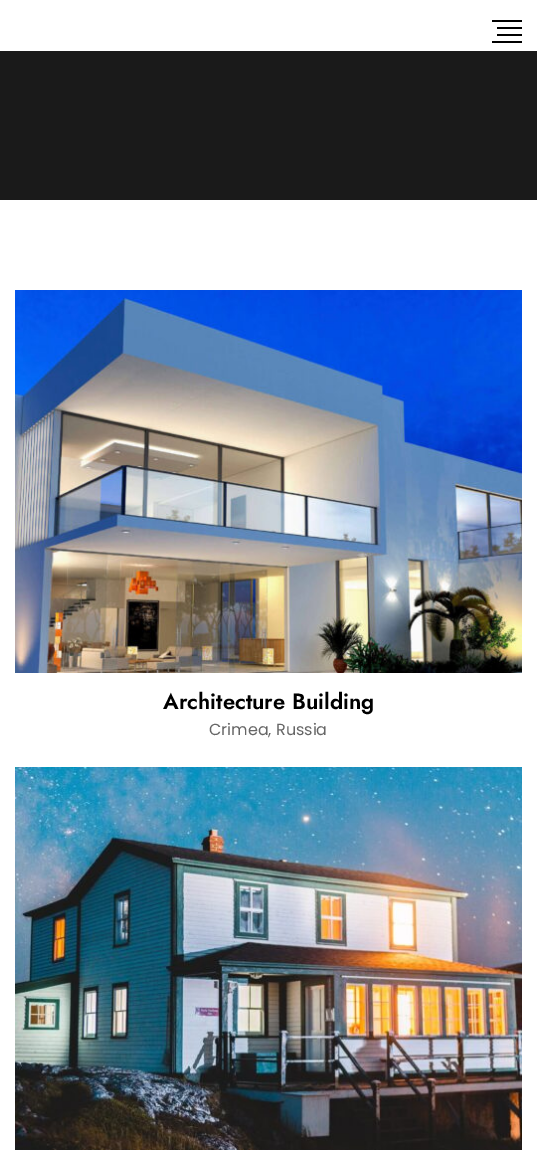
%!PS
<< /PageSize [537 1160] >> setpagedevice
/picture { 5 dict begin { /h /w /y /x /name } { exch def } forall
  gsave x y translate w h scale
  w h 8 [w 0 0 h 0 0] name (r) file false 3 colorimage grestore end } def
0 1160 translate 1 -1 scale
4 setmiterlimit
1 setgray
0 0 537 1160 rectfill
0 setgray
492 20 30 2 rectfill
497 27 25 2 rectfill
497 34 25 2 rectfill
492 41 30 2 rectfill
0.102 setgray
0 51 537 149 rectfill
(img1.rgb) 15 290 507 383 picture
/Jost-SemiBold [22 0 0 -22 0 0] selectfont
0 setgray
163 709 moveto (Architecture Building) show
/Poppins-Regular [16 0 0 -16 0 0] selectfont
0.4 setgray
209 735 moveto (Crimea, Russia) show
(img2.rgb) 15 767 507 383 picture
showpage
